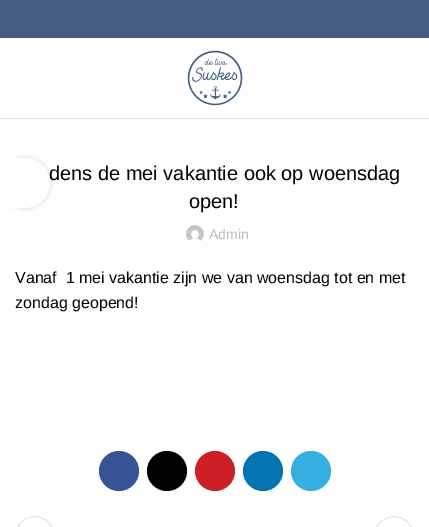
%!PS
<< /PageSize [429 527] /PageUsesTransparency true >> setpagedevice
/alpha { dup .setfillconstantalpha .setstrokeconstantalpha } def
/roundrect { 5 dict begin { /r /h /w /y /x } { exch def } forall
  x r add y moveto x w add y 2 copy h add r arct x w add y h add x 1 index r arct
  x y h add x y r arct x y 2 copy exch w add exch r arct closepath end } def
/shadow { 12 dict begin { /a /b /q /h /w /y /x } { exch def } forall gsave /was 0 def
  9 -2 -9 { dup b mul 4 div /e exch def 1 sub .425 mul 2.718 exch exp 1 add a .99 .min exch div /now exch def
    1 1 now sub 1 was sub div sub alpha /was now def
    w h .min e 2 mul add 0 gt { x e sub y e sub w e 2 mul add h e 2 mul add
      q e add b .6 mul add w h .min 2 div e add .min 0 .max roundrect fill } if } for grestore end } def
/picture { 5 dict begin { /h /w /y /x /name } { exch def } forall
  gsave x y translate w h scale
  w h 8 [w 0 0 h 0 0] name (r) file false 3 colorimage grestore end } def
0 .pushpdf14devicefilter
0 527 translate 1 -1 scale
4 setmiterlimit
1 setgray
0 0 429 527 rectfill
gsave
newpath 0 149 moveto 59 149 lineto 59 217 lineto 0 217 lineto closepath 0 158 moveto 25 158 lineto 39 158 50 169 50 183 curveto 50 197 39 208 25 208 curveto 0 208 lineto closepath eoclip newpath
0 setgray
0 158 50 50 25 2.5 0.17 shadow
grestore
0.9 alpha
newpath 0 158 moveto 25 158 lineto 39 158 50 169 50 183 curveto 50 197 39 208 25 208 curveto 0 208 lineto closepath fill
1 alpha
0.275 0.365 0.506 setrgbcolor
0 0 429 38 rectfill
0.91 setgray
0 118 429 1 rectfill
(img1.rgb) 187 50 56 56 picture
/LiberationSans-Regular [20 0 0 -20 0 0] selectfont
0 setgray
49 180 moveto (dens de mei vakantie ook op woensdag) show
189 208 moveto (open!) show
(img2.rgb) 186 225 18 16 picture
/LiberationSans-Regular [14 0 0 -14 0 0] selectfont
0.733 setgray
209 239 moveto (Admin) show
/LiberationSans-Regular [16 0 0 -16 0 0] selectfont
0 setgray
15 283 moveto (Vanaf  1 mei vakantie zijn we van woensdag tot en met) show
15 308 moveto (zondag geopend!) show
0.212 0.329 0.576 setrgbcolor
newpath 119 471 20 0 360 arc closepath fill
0 setgray
newpath 167 471 20 0 360 arc closepath fill
0.796 0.125 0.153 setrgbcolor
newpath 215 471 20 0 360 arc closepath fill
0.008 0.455 0.702 setrgbcolor
newpath 263 471 20 0 360 arc closepath fill
0.216 0.682 0.886 setrgbcolor
newpath 311 471 20 0 360 arc closepath fill
0.894 setgray
15.5 516.5 39 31 19.5 roundrect stroke
374.5 516.5 39 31 19.5 roundrect stroke
.poppdf14devicefilter showpage
